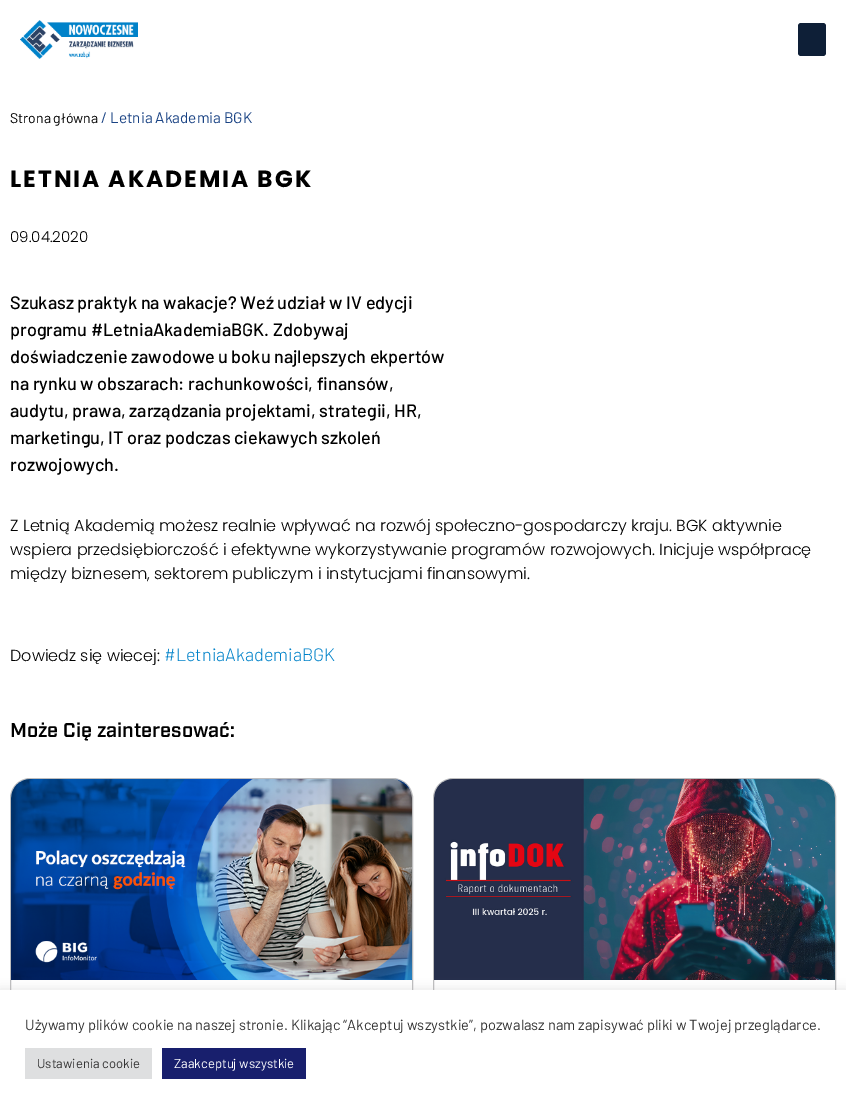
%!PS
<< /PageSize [846 1109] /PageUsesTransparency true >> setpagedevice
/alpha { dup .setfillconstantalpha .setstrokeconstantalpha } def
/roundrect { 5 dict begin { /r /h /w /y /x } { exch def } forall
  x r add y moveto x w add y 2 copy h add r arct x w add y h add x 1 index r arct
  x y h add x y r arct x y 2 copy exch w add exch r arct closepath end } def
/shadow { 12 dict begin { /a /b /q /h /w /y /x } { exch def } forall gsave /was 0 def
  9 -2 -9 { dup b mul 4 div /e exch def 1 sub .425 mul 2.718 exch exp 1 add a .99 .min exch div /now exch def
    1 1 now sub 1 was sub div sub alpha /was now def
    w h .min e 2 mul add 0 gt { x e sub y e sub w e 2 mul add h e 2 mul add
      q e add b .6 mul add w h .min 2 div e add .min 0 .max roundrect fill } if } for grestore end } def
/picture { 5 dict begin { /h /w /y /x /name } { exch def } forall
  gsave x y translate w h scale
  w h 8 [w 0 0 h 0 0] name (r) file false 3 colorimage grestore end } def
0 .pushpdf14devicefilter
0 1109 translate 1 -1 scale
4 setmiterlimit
1 setgray
0 0 846 1109 rectfill
(img1.rgb) 20 20 118 39 picture
0.055 0.122 0.216 setrgbcolor
798 23 28 33 3 roundrect fill
/Barlow-Regular [14 0 0 -14 0 0] selectfont
0 setgray
10 123 moveto (Strona główna) show
/Barlow-Regular [15.25 0 0 -15.25 0 0] selectfont
0.102 0.263 0.518 setrgbcolor
101 123 moveto (/ Letnia Akademia BGK) show
/Poppins-Bold [23.4 0 0 -23.4 0 0] selectfont
0 setgray
10 187 moveto 2 0 (LETNIA AKADEMIA BGK) ashow
/Poppins-Light [15 0 0 -15 0 0] selectfont
10 242 moveto (09.04.2020) show
/Barlow-Medium [18 0 0 -18 0 0] selectfont
10 309 moveto (Szukasz praktyk na wakacje? Weź udział w IV edycji) show
10 336 moveto (programu #LetniaAkademiaBGK. Zdobywaj) show
10 363 moveto (doświadczenie zawodowe u boku najlepszych ekpertów) show
10 390 moveto (na rynku w obszarach: rachunkowości, finansów,) show
10 417 moveto (audytu, prawa, zarządzania projektami, strategii, HR,) show
10 444 moveto (marketingu, IT oraz podczas ciekawych szkoleń) show
10 471 moveto (rozwojowych.) show
/Poppins-Light [16 0 0 -16 0 0] selectfont
10 531 moveto (Z Letnią Akademią możesz realnie wpływać na rozwój społeczno-gospodarczy kraju. BGK aktywnie) show
10 555 moveto (wspiera przedsiębiorczość i efektywne wykorzystywanie programów rozwojowych. Inicjuje współpracę) show
10 579 moveto (między biznesem, sektorem publiczym i instytucjami finansowymi.) show
10 661 moveto (Dowiedz się wiecej:) show
/Barlow-Light [18 0 0 -18 0 0] selectfont
0 0.51 0.788 setrgbcolor
164 661 moveto (#LetniaAkademiaBGK) show
/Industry-Regular [20 0 0 -20 0 0] selectfont
0 setgray
10 737 moveto (Może Cię zainteresować:) show
0.741 0.741 0.745 setrgbcolor
10.5 778.5 402 314 19.5 roundrect stroke
(img2.rgb) 11 779 401 201 picture
433.5 778.5 402 314 19.5 roundrect stroke
(img3.rgb) 434 779 401 201 picture
0.675 0.671 0.671 setrgbcolor
0 989 846 119 0 5 0.3 shadow
1 setgray
0 990 846 119 rectfill
/Barlow-Regular [14.67 0 0 -14.67 0 0] selectfont
0.2 setgray
25 1030 moveto (Używamy plików cookie na naszej stronie. Klikając “Akceptuj wszystkie”, pozwalasz nam zapisywać pliki w Twojej przeglądarce.) show
0.871 0.875 0.878 setrgbcolor
25 1048 127 31 rectfill
/Barlow-Regular [13 0 0 -13 0 0] selectfont
0.2 setgray
37 1068 moveto (Ustawienia cookie) show
0.094 0.122 0.427 setrgbcolor
162 1048 144 31 rectfill
1 setgray
174 1068 moveto (Zaakceptuj wszystkie) show
.poppdf14devicefilter showpage
